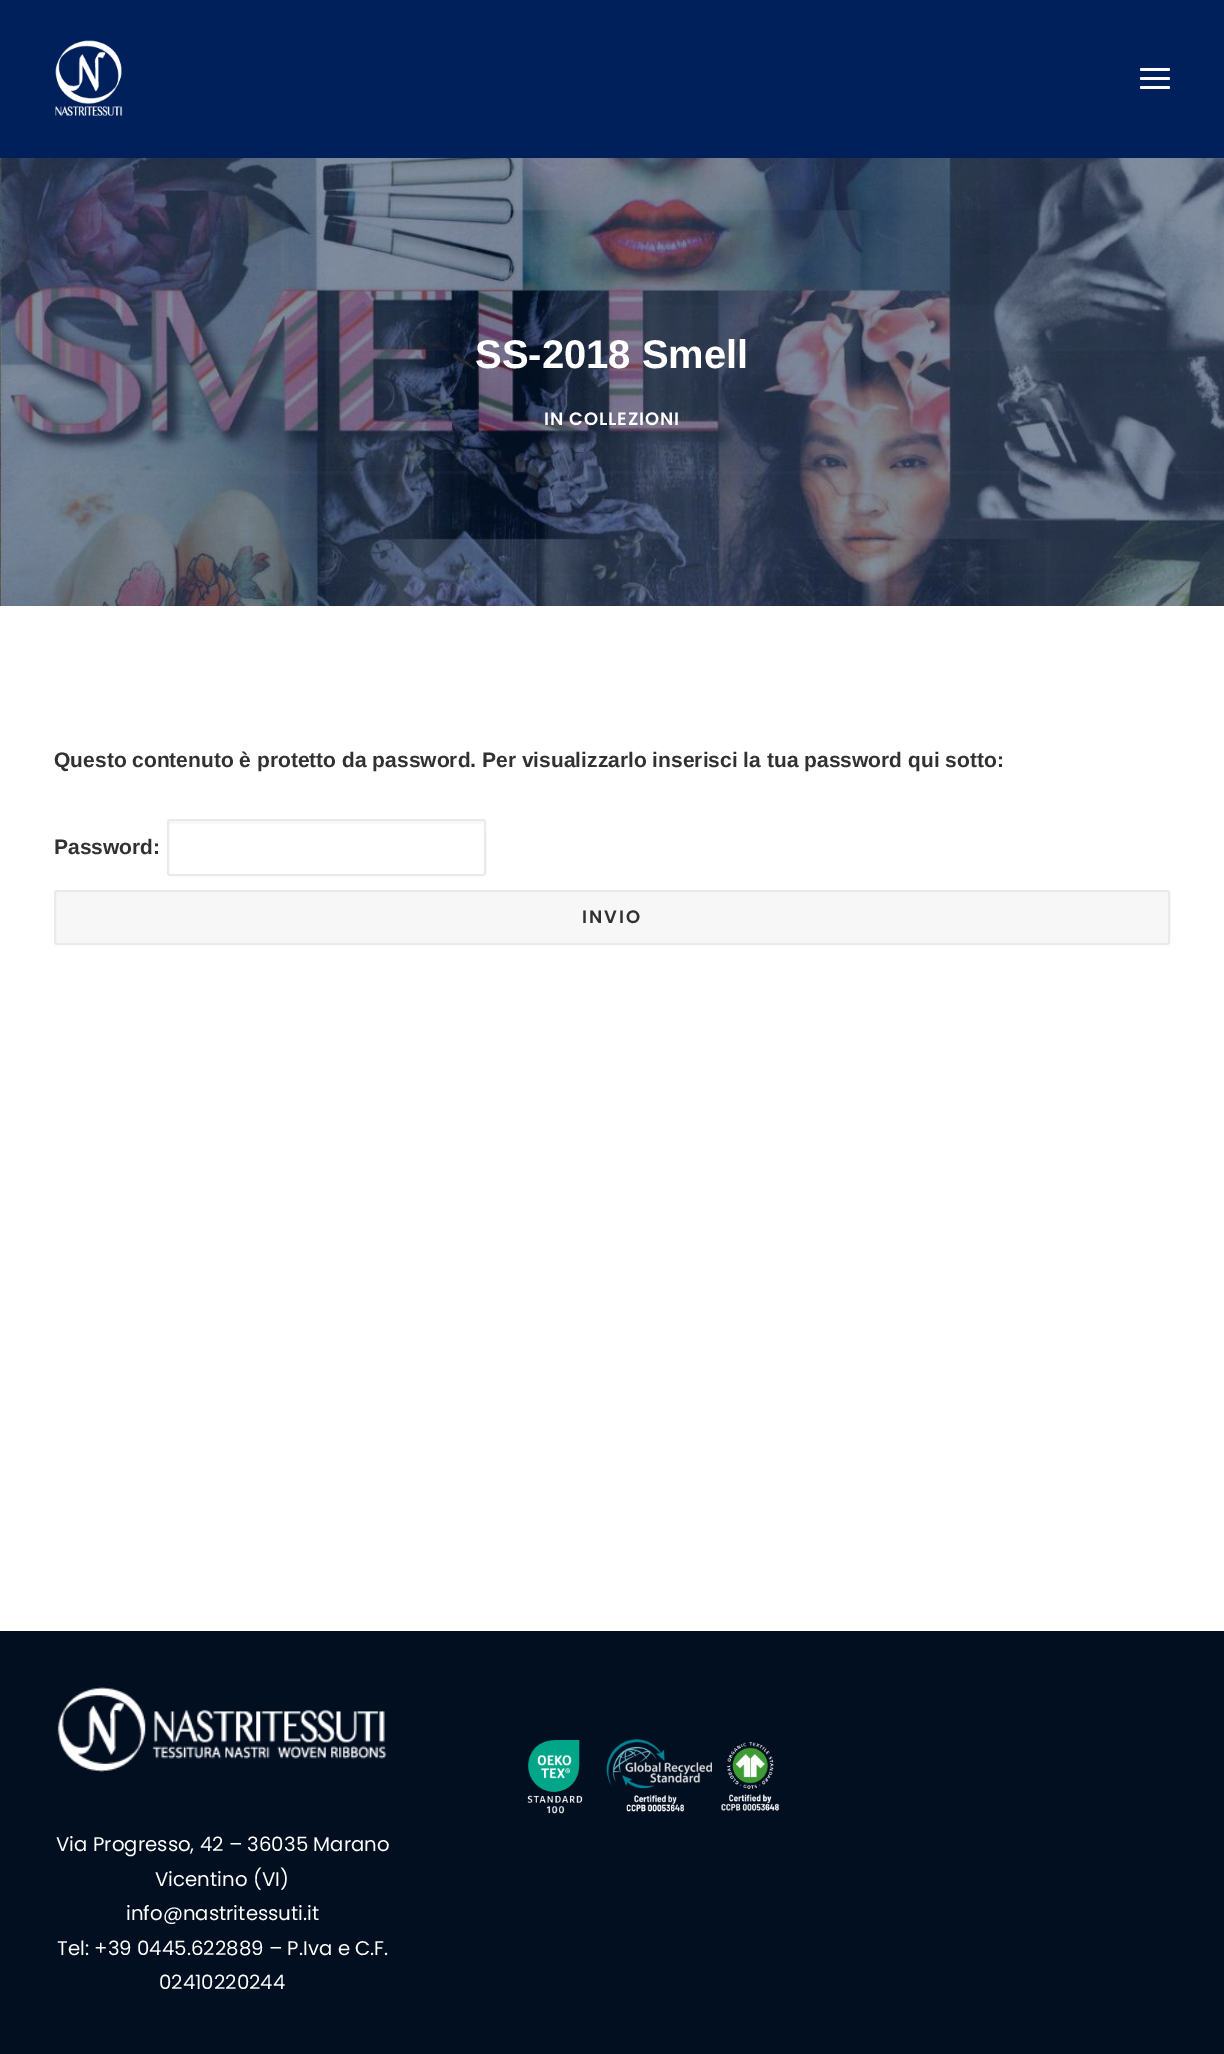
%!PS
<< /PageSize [1224 2054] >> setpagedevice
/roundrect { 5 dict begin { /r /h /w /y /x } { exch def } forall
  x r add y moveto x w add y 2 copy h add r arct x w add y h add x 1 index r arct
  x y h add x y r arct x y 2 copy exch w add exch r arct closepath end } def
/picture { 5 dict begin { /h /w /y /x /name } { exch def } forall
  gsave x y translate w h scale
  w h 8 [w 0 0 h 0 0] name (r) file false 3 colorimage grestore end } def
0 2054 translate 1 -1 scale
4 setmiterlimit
1 setgray
0 0 1224 2054 rectfill
0 0.125 0.357 setrgbcolor
0 0 1224 158 rectfill
(img1.rgb) 55 40 68 76 picture
1 setgray
1140 77 30 3 1.5 roundrect fill
1140 68 30 3 1.5 roundrect fill
1140 86 30 3 1.5 roundrect fill
(img2.rgb) 0 158 1224 448 picture
/LiberationSans-Bold [40 0 0 -40 0 0] selectfont
475 368 moveto (SS-2018 Smell) show
/Poppins-SemiBold [18 0 0 -18 0 0] selectfont
544 425 moveto 0.9 0 (IN COLLEZIONI) ashow
/LiberationSans-Bold [21 0 0 -21 0 0] selectfont
0.188 0.192 0.2 setrgbcolor
54 767 moveto (Questo contenuto è protetto da password. Per visualizzarlo inserisci la tua password qui sotto:) show
54 854 moveto (Password:) show
0.976 setgray
newpath 170 824 moveto 483 824 lineto 484 824 484 824 484 825 curveto 484 875 lineto 485 875 485 874 485 874 curveto 485 822 lineto 485 822 484 821 484 821 curveto 170 821 lineto 169 821 168 822 168 822 curveto 168 825 lineto 168 824 169 824 170 824 curveto closepath fill
0.918 setgray
2 setlinewidth
168 820 317 55 2 roundrect stroke
0.969 setgray
55 891 1114 53 2 roundrect gsave fill grestore
0.918 setgray
stroke
/Poppins-SemiBold [18 0 0 -18 0 0] selectfont
0.188 0.192 0.2 setrgbcolor
582 923 moveto 2 0 (INVIO) ashow
0.008 0.059 0.129 setrgbcolor
0 1631 1224 423 rectfill
(img3.rgb) 527 1739 253 75 picture
(img4.rgb) 57 1687 330 85 picture
/Poppins-Regular [19.75 0 0 -19.75 0 0] selectfont
1 setgray
56 1851 moveto (Via Progresso, 42 – 36035 Marano) show
155 1886 moveto (Vicentino \(VI\)) show
126 1920 moveto (info@nastritessuti.it) show
57 1955 moveto (Tel: +39 0445.622889 – P.Iva e C.F.) show
159 1989 moveto (02410220244) show
showpage
